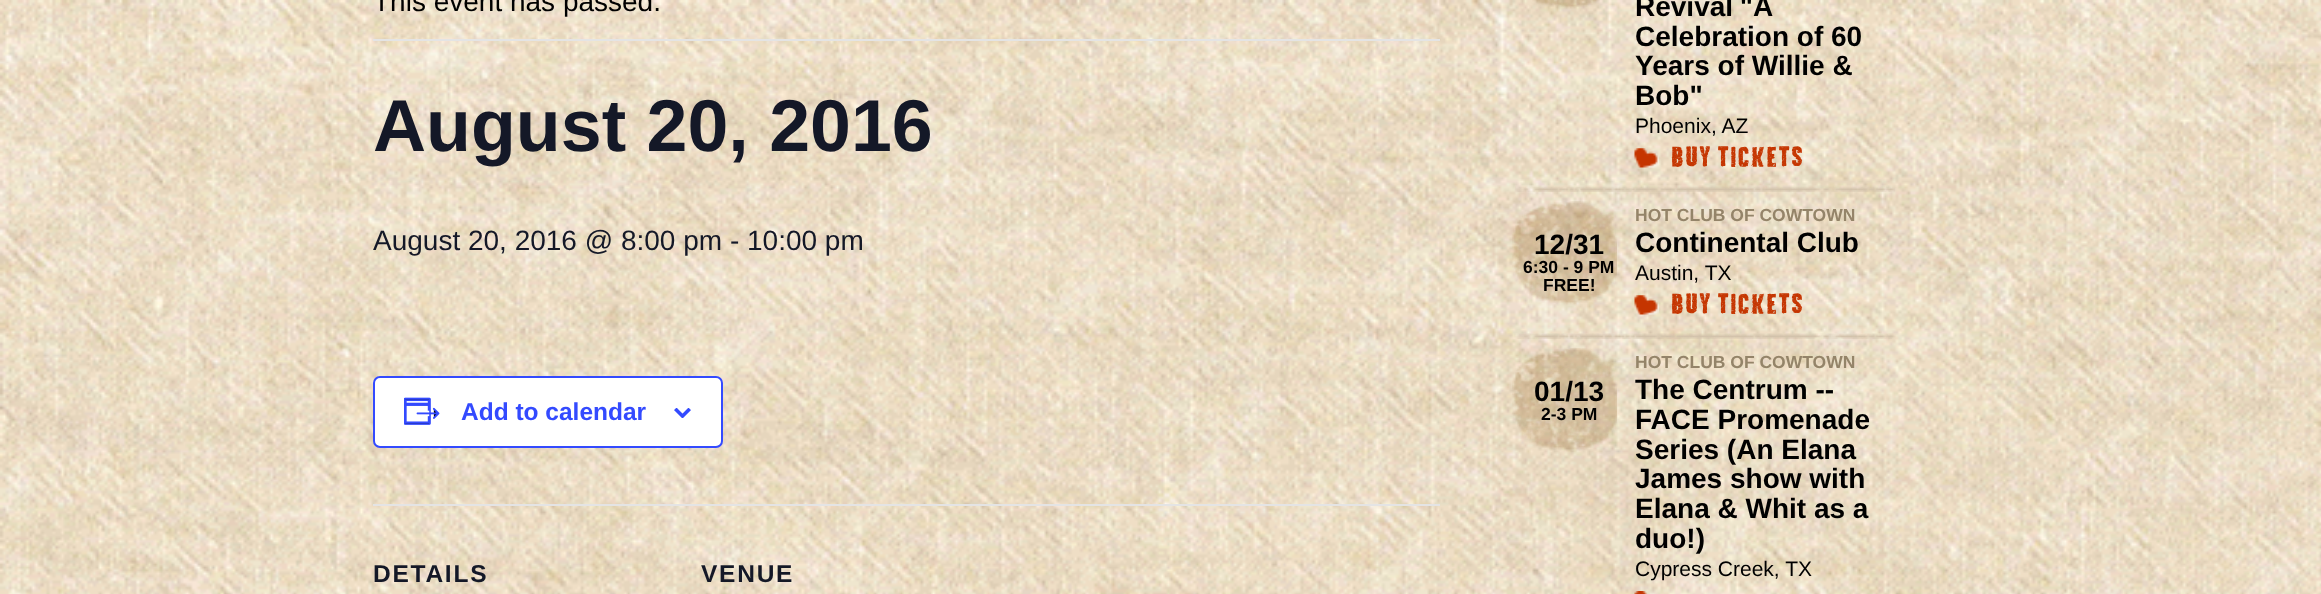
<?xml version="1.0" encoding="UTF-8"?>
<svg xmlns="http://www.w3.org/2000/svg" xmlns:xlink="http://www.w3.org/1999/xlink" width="2321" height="594">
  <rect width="100%" height="100%" fill="#ffffff" />
  <image x="0" y="0" width="2321" height="594" xlink:href="image1.png" />
  <rect x="373" y="39" width="1067" height="2" fill="#e4e4e4" />
  <rect x="374" y="377" width="348" height="70" rx="6" fill="#ffffff" stroke="#334aff" stroke-width="2" />
  <image x="404" y="397" width="36" height="28" xlink:href="image2.png" />
  <image x="674" y="408" width="17" height="10" xlink:href="image3.png" />
  <rect x="373" y="504" width="1067" height="2" fill="#e4e4e4" />
  <image x="1515" y="186" width="380" height="6" xlink:href="image4.png" />
  <image x="1532" y="0" width="68" height="9" xlink:href="image5.png" />
  <image x="1634" y="148" width="25" height="20" xlink:href="image6.png" />
  <image x="1514" y="333" width="382" height="6" xlink:href="image7.png" />
  <image x="1512" y="201" width="105" height="104" xlink:href="image8.png" />
  <image x="1634" y="295" width="25" height="20" xlink:href="image9.png" />
  <image x="1512" y="348" width="105" height="104" xlink:href="image10.png" />
  <image x="1634" y="591" width="13" height="3" xlink:href="image11.png" />
  <text x="373" y="11" style="font-family: Liberation Sans; font-size: 28px; fill: #000000">This event has passed.</text>
  <text x="373" y="151" style="font-family: Liberation Sans; font-size: 73.5px; font-weight: bold; fill: #141827">August 20, 2016</text>
  <text x="373" y="250" style="font-family: Liberation Sans; font-size: 28px; fill: #141827">August 20, 2016 @ 8:00 pm - 10:00 pm</text>
  <text x="461" y="420" style="font-family: Liberation Sans; font-size: 24.5px; font-weight: bold; fill: #334aff">Add to calendar</text>
  <text x="373" y="582" style="font-family: Liberation Sans; font-size: 24.5px; font-weight: bold; letter-spacing: 1.75px; fill: #141827">DETAILS</text>
  <text x="701" y="582" style="font-family: Liberation Sans; font-size: 24.5px; font-weight: bold; letter-spacing: 1.75px; fill: #141827">VENUE</text>
  <text x="1635" y="16" word-spacing="-1" style="font-family: Liberation Sans; font-size: 28px; font-weight: bold; fill: #000000">Revival "A</text>
  <text x="1635" y="46" style="font-family: Liberation Sans; font-size: 28px; font-weight: bold; fill: #000000">Celebration of 60</text>
  <text x="1635" y="75" style="font-family: Liberation Sans; font-size: 28px; font-weight: bold; fill: #000000">Years of Willie &amp;</text>
  <text x="1635" y="105" style="font-family: Liberation Sans; font-size: 28px; font-weight: bold; fill: #000000">Bob"</text>
  <text x="1635" y="133" style="font-family: Liberation Sans; font-size: 21px; fill: #000000">Phoenix, AZ</text>
  <text x="1670" y="166" style="font-family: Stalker; font-size: 26.25px; fill: #c53500">Buy Tickets</text>
  <text x="1534" y="254" style="font-family: Liberation Sans; font-size: 28px; font-weight: bold; fill: #000000">12/31</text>
  <text x="1523" y="273" style="font-family: Liberation Sans; font-size: 17.5px; font-weight: bold; fill: #000000">6:30 - 9 PM</text>
  <text x="1543" y="291" style="font-family: Liberation Sans; font-size: 17.5px; font-weight: bold; fill: #000000">FREE!</text>
  <text x="1635" y="221" style="font-family: Liberation Sans; font-size: 17.5px; font-weight: bold; fill: #948469">HOT CLUB OF COWTOWN</text>
  <text x="1635" y="252" style="font-family: Liberation Sans; font-size: 28px; font-weight: bold; fill: #000000">Continental Club</text>
  <text x="1635" y="280" style="font-family: Liberation Sans; font-size: 21px; fill: #000000">Austin, TX</text>
  <text x="1670" y="313" style="font-family: Stalker; font-size: 26.25px; fill: #c53500">Buy Tickets</text>
  <text x="1534" y="401" style="font-family: Liberation Sans; font-size: 28px; font-weight: bold; fill: #000000">01/13</text>
  <text x="1541" y="420" style="font-family: Liberation Sans; font-size: 17.5px; font-weight: bold; fill: #000000">2-3 PM</text>
  <text x="1635" y="368" style="font-family: Liberation Sans; font-size: 17.5px; font-weight: bold; fill: #948469">HOT CLUB OF COWTOWN</text>
  <text x="1635" y="399" style="font-family: Liberation Sans; font-size: 28px; font-weight: bold; fill: #000000">The Centrum --</text>
  <text x="1635" y="429" style="font-family: Liberation Sans; font-size: 28px; font-weight: bold; fill: #000000">FACE Promenade</text>
  <text x="1635" y="459" style="font-family: Liberation Sans; font-size: 28px; font-weight: bold; fill: #000000">Series (An Elana</text>
  <text x="1635" y="488" style="font-family: Liberation Sans; font-size: 28px; font-weight: bold; fill: #000000">James show with</text>
  <text x="1635" y="518" style="font-family: Liberation Sans; font-size: 28px; font-weight: bold; fill: #000000">Elana &amp; Whit as a</text>
  <text x="1635" y="548" style="font-family: Liberation Sans; font-size: 28px; font-weight: bold; fill: #000000">duo!)</text>
  <text x="1635" y="576" style="font-family: Liberation Sans; font-size: 21px; fill: #000000">Cypress Creek, TX</text>
</svg>
